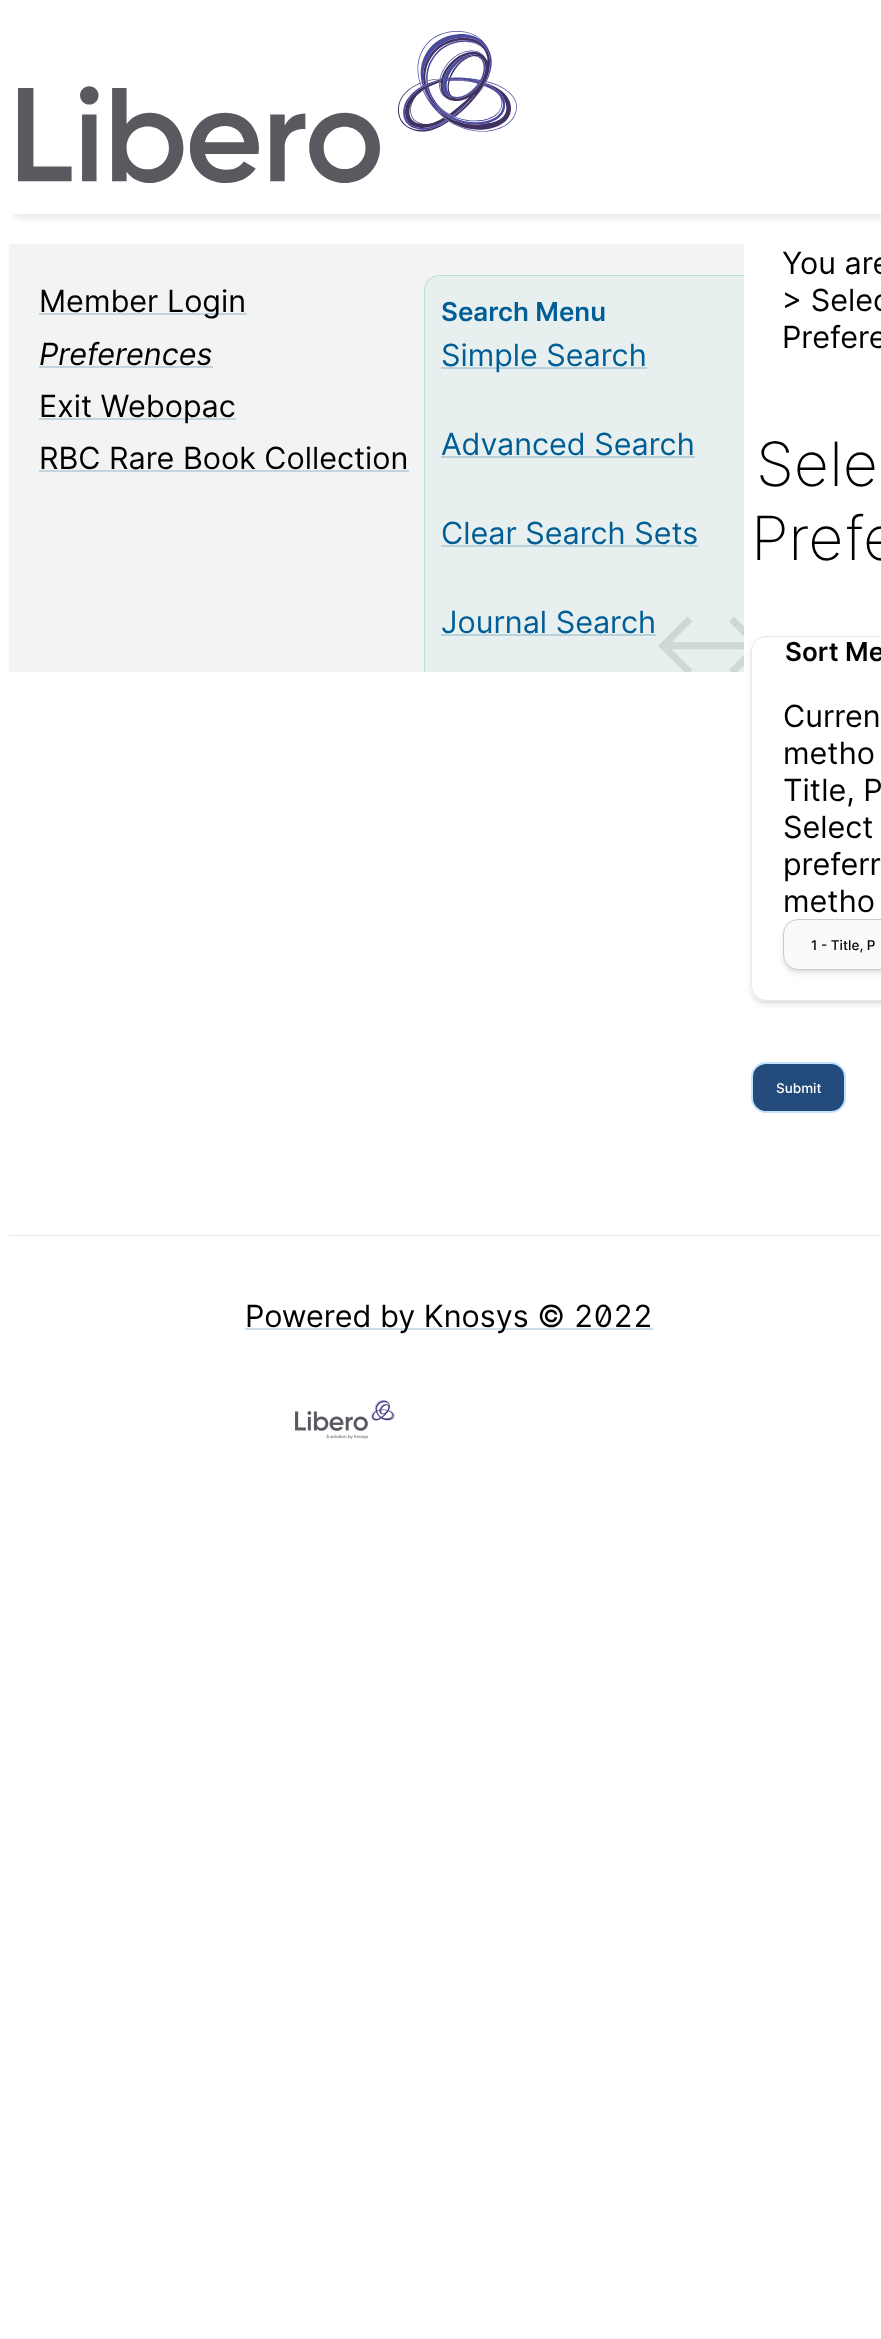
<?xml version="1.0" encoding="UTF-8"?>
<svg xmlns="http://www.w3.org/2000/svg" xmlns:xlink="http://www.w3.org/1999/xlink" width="881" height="2339">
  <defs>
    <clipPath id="clip1"><rect x="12" y="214" width="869" height="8" /></clipPath>
    <clipPath id="clip2"><path d="M 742 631 h 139 v 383 h -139 z m 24 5 h 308 c 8.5 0 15 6.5 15 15 v 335 c 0 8.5 -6.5 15 -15 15 h -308 c -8.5 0 -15 -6.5 -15 -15 v -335 c 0 -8.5 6.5 -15 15 -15 z" clip-rule="evenodd" /></clipPath>
    <clipPath id="clip3"><path d="M 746 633 h 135 v 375 h -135 z m 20 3 h 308 c 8.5 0 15 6.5 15 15 v 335 c 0 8.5 -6.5 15 -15 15 h -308 c -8.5 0 -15 -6.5 -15 -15 v -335 c 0 -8.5 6.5 -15 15 -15 z" clip-rule="evenodd" /></clipPath>
    <clipPath id="clip4"><rect x="9" y="244" width="735" height="428" /></clipPath>
  </defs>
  <rect width="100%" height="100%" fill="#ffffff" />
  <g clip-path="url(#clip1)">
    <rect x="15" y="16" width="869" height="202" fill="#000000" fill-opacity="0.1" filter="blur(5px)" />
  </g>
  <image x="18" y="31" width="499" height="152" xlink:href="image1.png" />
  <g clip-path="url(#clip2)">
    <rect x="752" y="641" width="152" height="363" rx="14" fill="#000000" fill-opacity="0.1" filter="blur(3px)" />
  </g>
  <rect x="9" y="244" width="735" height="428" fill="#f3f3f3" />
  <rect x="39" y="313" width="208" height="2" fill="#c3d4de" />
  <path d="M 439 275 h 305 v 397 h -320 v -382 c 0 -8.5 6.5 -15 15 -15 z" fill="#e7f0ee" />
  <rect x="39" y="366" width="174" height="2" fill="#c3d4de" />
  <rect x="39" y="418" width="197" height="2" fill="#c3d4de" />
  <rect x="39" y="470" width="370" height="2" fill="#c3d4de" />
  <g clip-path="url(#clip3)">
    <rect x="753" y="640" width="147" height="361" rx="13" fill="#000000" fill-opacity="0.1" filter="blur(2px)" />
  </g>
  <rect x="751.5" y="636.5" width="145" height="364" rx="14.5" fill="none" stroke="#e8e8e8" />
  <rect x="785" y="923" width="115" height="47" rx="13" fill="#000000" fill-opacity="0.1" filter="blur(2px)" />
  <rect x="784" y="924" width="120" height="49" rx="14" fill="#000000" fill-opacity="0.1" filter="blur(3px)" />
  <rect x="783.5" y="919.5" width="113" height="50" rx="14.5" fill="#f9fafb" stroke="#cccccc" />
  <rect x="752" y="1063" width="93" height="49" rx="14" fill="#224a7a" stroke="#c0e1ff" stroke-width="2" />
  <rect x="9" y="1235" width="872" height="1" fill="#e8e8e8" />
  <image x="295" y="1400" width="100" height="39" xlink:href="image2.png" />
  <rect x="245" y="1328" width="408" height="2" fill="#ccdde7" />
  <text x="39" y="312" style="font-family: Inter; font-size: 30.5px; fill: #000000">Member Login</text>
  <text x="39" y="365" style="font-family: Inter; font-size: 30.5px; font-style: italic; fill: #000000">Preferences</text>
  <text x="39" y="417" style="font-family: Inter; font-size: 30.5px; fill: #000000">Exit Webopac</text>
  <text x="39" y="469" style="font-family: Inter; font-size: 30.5px; fill: #000000">RBC Rare Book Collection</text>
  <text x="782" y="274" style="font-family: Inter; font-size: 30.5px; fill: #000000">You are</text>
  <text x="782" y="311" style="font-family: Inter; font-size: 30.5px; fill: #000000">&gt; Selec</text>
  <text x="782" y="348" style="font-family: Inter; font-size: 30.5px; fill: #000000">Prefere</text>
  <text x="756" y="486" style="font-family: Inter; font-size: 61px; font-weight: 200; fill: #000000">Sele</text>
  <text x="751" y="560" style="font-family: Inter; font-size: 61px; font-weight: 200; fill: #000000">Prefe</text>
  <text x="785" y="661" style="font-family: Inter; font-size: 26px; font-weight: 600; fill: #000000">Sort Me</text>
  <text x="783" y="727" style="font-family: Inter; font-size: 30.5px; fill: #000000">Curren</text>
  <text x="783" y="764" style="font-family: Inter; font-size: 30.5px; fill: #000000">metho</text>
  <text x="783" y="801" style="font-family: Inter; font-size: 30.5px; fill: #000000">Title, P</text>
  <g clip-path="url(#clip4)">
    <rect x="424.5" y="275.5" width="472" height="515" rx="14.5" fill="none" stroke="#00a57d" stroke-opacity="0.2" />
    <text x="649" y="675" style="font-family: Inter; font-size: 92px; fill: #d0d8d6">↔</text>
  </g>
  <text x="441" y="633" style="font-family: Inter; font-size: 30.5px; fill: #005d95">Journal Search</text>
  <rect x="441" y="634" width="215" height="2" fill="#bad2db" />
  <text x="441" y="544" style="font-family: Inter; font-size: 30.5px; fill: #005d95">Clear Search Sets</text>
  <rect x="441" y="545" width="257" height="2" fill="#bad2db" />
  <text x="441" y="455" style="font-family: Inter; font-size: 30.5px; fill: #005d95">Advanced Search</text>
  <rect x="441" y="456" width="254" height="2" fill="#bad2db" />
  <rect x="441" y="367" width="206" height="2" fill="#bad2db" />
  <text x="441" y="366" style="font-family: Inter; font-size: 30.5px; fill: #005d95">Simple Search</text>
  <text x="441" y="321" style="font-family: Inter; font-size: 26px; font-weight: 600; fill: #005d95">Search Menu</text>
  <text x="783" y="838" style="font-family: Inter; font-size: 30.5px; fill: #000000">Select</text>
  <text x="783" y="875" style="font-family: Inter; font-size: 30.5px; fill: #000000">preferr</text>
  <text x="783" y="912" style="font-family: Inter; font-size: 30.5px; fill: #000000">metho</text>
  <text x="811" y="950" style="font-family: Inter; font-size: 13.5px; font-weight: 500; fill: #000000">1 - Title, P</text>
  <text x="776" y="1093" style="font-family: Inter; font-size: 13.5px; font-weight: 500; fill: #ffffff">Submit</text>
  <text x="245" y="1327" style="font-family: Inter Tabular; font-size: 30.5px; fill: #000000">Powered by Knosys © 2022</text>
</svg>
